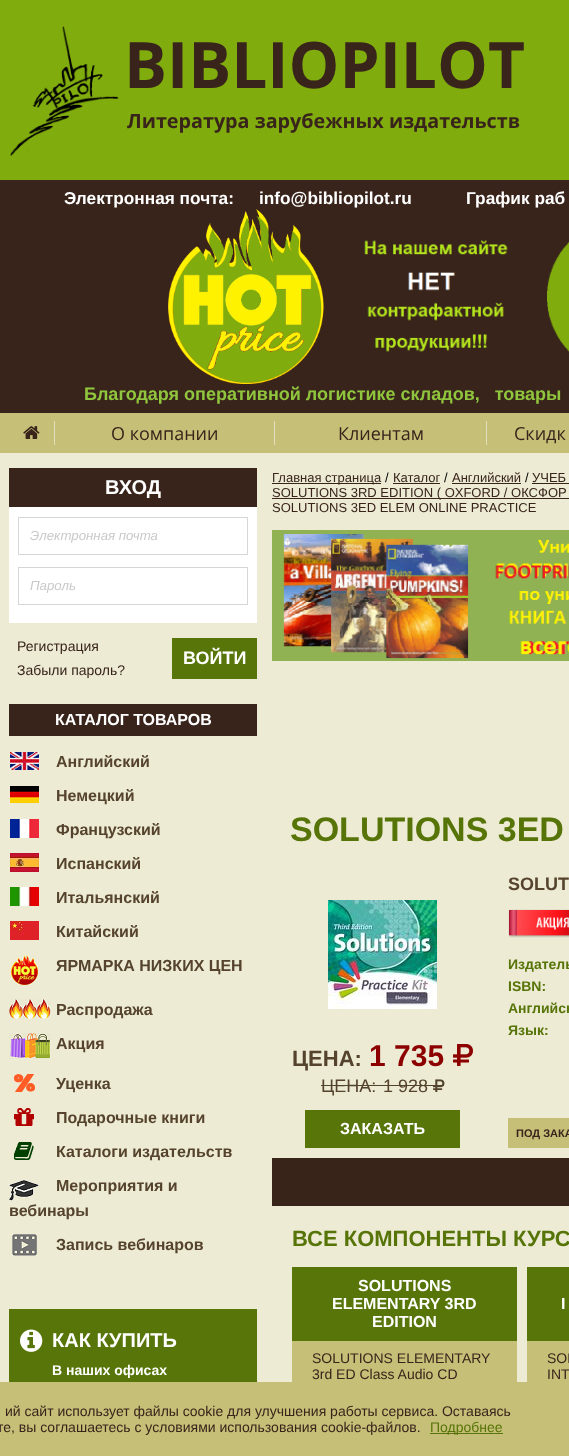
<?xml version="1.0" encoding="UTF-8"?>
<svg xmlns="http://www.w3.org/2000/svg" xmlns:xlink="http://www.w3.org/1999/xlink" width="569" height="1456">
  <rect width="100%" height="100%" fill="#80ac0d" />
  <image x="10" y="26" width="109" height="130" xlink:href="image1.png" />
  <rect y="180" width="569" height="233" fill="#38241b" />
  <image x="168" y="209" width="156" height="175" xlink:href="image2.png" />
  <image x="364" y="240" width="144" height="112" xlink:href="image3.png" />
  <image x="547" y="241" width="22" height="111" xlink:href="image4.png" />
  <rect y="413" width="569" height="40" fill="#c6bf77" />
  <image x="23" y="426" width="17" height="13" xlink:href="image5.png" />
  <rect x="54" y="421" width="1" height="24" fill="#e2debc" />
  <rect x="274" y="421" width="1" height="24" fill="#e2debc" />
  <rect x="486" y="421" width="1" height="24" fill="#e2debc" />
  <rect y="453" width="569" height="929" fill="#edebd4" />
  <rect x="9" y="468" width="248" height="39" fill="#38241b" />
  <rect x="9" y="507" width="248" height="116" fill="#ffffff" />
  <rect x="18.5" y="517.5" width="229" height="37" fill="none" stroke="#d6d6d6" />
  <rect x="18.5" y="567.5" width="229" height="37" fill="none" stroke="#d6d6d6" />
  <rect x="172" y="638" width="85" height="41" fill="#577509" />
  <rect x="9" y="704" width="248" height="32" fill="#38241b" />
  <image x="10" y="752" width="29" height="18" xlink:href="image6.png" />
  <image x="10" y="786" width="29" height="17" xlink:href="image7.png" />
  <image x="10" y="819" width="29" height="19" xlink:href="image8.png" />
  <image x="10" y="853" width="29" height="19" xlink:href="image9.png" />
  <image x="10" y="887" width="29" height="19" xlink:href="image10.png" />
  <image x="10" y="921" width="29" height="19" xlink:href="image11.png" />
  <image x="11" y="955" width="27" height="30" xlink:href="image12.png" />
  <image x="9" y="999" width="42" height="20" xlink:href="image13.png" />
  <image x="9" y="1033" width="42" height="26" xlink:href="image14.png" />
  <image x="14" y="1074" width="21" height="18" xlink:href="image15.png" />
  <image x="14" y="1108" width="20" height="18" xlink:href="image16.png" />
  <image x="14" y="1142" width="20" height="18" xlink:href="image17.png" />
  <image x="9" y="1180" width="30" height="21" xlink:href="image18.png" />
  <image x="12" y="1234" width="25" height="22" xlink:href="image19.png" />
  <rect x="9" y="1309" width="248" height="73" fill="#577509" />
  <image x="20" y="1329" width="23" height="23" xlink:href="image20.png" />
  <rect x="272" y="483" width="109" height="1" fill="#382419" />
  <rect x="393" y="483" width="47" height="1" fill="#382419" />
  <rect x="452" y="483" width="69" height="1" fill="#382419" />
  <rect x="532" y="483" width="37" height="1" fill="#382419" />
  <rect x="272" y="498" width="297" height="1" fill="#382419" />
  <image x="272" y="530" width="297" height="131" xlink:href="image21.png" />
  <image x="508" y="909" width="61" height="29" xlink:href="image22.png" />
  <image x="328" y="900" width="109" height="109" xlink:href="image23.png" />
  <image x="453" y="1044" width="20" height="22" xlink:href="image24.png" />
  <rect x="305" y="1110" width="155" height="38" fill="#577509" />
  <rect x="508" y="1118" width="61" height="30" fill="#c6bf77" />
  <rect x="272" y="1158" width="297" height="48" fill="#382419" />
  <rect x="292" y="1341" width="225" height="41" fill="#c6bf77" />
  <rect x="292" y="1267" width="225" height="74" fill="#577509" />
  <rect x="527" y="1341" width="42" height="41" fill="#c6bf77" />
  <rect x="527" y="1267" width="42" height="74" fill="#577509" />
  <rect y="1382" width="569" height="74" fill="#c6bf77" />
  <rect x="430" y="1433" width="73" height="1" fill="#577509" />
  <text x="124" y="88" style="font-family: Open Sans; font-size: 64px; font-weight: bold; fill: #38241b">BIBLIOPILOT</text>
  <text x="127" y="128" style="font-family: Open Sans; font-size: 19.75px; font-weight: bold; fill: #38241b">Литература зарубежных издательств</text>
  <text x="64" y="204" style="font-family: Liberation Sans; font-size: 17.25px; font-weight: bold; fill: #ffffff">Электронная почта:</text>
  <text x="259" y="204" style="font-family: Liberation Sans; font-size: 17.25px; font-weight: bold; fill: #ffffff">info@bibliopilot.ru</text>
  <text x="466" y="204" style="font-family: Liberation Sans; font-size: 17.25px; font-weight: bold; fill: #ffffff">График раб</text>
  <text x="84" y="400" style="font-family: Liberation Sans; font-size: 18px; font-weight: bold; fill: #8fc63d" xml:space="preserve">Благодаря оперативной логистике складов,   товары</text>
  <text x="111" y="440" style="font-family: Open Sans; font-size: 18px; fill: #38241b">О компании</text>
  <text x="338" y="440" style="font-family: Open Sans; font-size: 18px; fill: #38241b">Клиентам</text>
  <text x="514" y="440" style="font-family: Open Sans; font-size: 18px; fill: #38241b">Скидк</text>
  <text x="105" y="494" style="font-family: Liberation Sans; font-size: 20px; font-weight: bold; fill: #ffffff">ВХОД</text>
  <text x="30" y="540" style="font-family: Liberation Sans; font-size: 13.25px; font-style: italic; fill: #c9c9c9">Электронная почта</text>
  <text x="30" y="590" style="font-family: Liberation Sans; font-size: 13.25px; font-style: italic; fill: #c9c9c9">Пароль</text>
  <text x="17" y="651" style="font-family: Liberation Sans; font-size: 14px; fill: #38241b">Регистрация</text>
  <text x="17" y="675" style="font-family: Liberation Sans; font-size: 14px; fill: #38241b">Забыли пароль?</text>
  <text x="183" y="664" style="font-family: Liberation Sans; font-size: 18px; font-weight: bold; fill: #ffffff">ВОЙТИ</text>
  <text x="55" y="725" style="font-family: Liberation Sans; font-size: 16px; font-weight: bold; fill: #ffffff">КАТАЛОГ ТОВАРОВ</text>
  <text x="56" y="767" style="font-family: Liberation Sans; font-size: 16px; font-weight: bold; fill: #55432d">Английский</text>
  <text x="56" y="801" style="font-family: Liberation Sans; font-size: 16px; font-weight: bold; fill: #55432d">Немецкий</text>
  <text x="56" y="835" style="font-family: Liberation Sans; font-size: 16px; font-weight: bold; fill: #55432d">Французский</text>
  <text x="56" y="869" style="font-family: Liberation Sans; font-size: 16px; font-weight: bold; fill: #55432d">Испанский</text>
  <text x="56" y="903" style="font-family: Liberation Sans; font-size: 16px; font-weight: bold; fill: #55432d">Итальянский</text>
  <text x="56" y="937" style="font-family: Liberation Sans; font-size: 16px; font-weight: bold; fill: #55432d">Китайский</text>
  <text x="56" y="971" style="font-family: Liberation Sans; font-size: 16px; font-weight: bold; fill: #55432d">ЯРМАРКА НИЗКИХ ЦЕН</text>
  <text x="56" y="1015" style="font-family: Liberation Sans; font-size: 16px; font-weight: bold; fill: #55432d">Распродажа</text>
  <text x="56" y="1049" style="font-family: Liberation Sans; font-size: 16px; font-weight: bold; fill: #55432d">Акция</text>
  <text x="56" y="1089" style="font-family: Liberation Sans; font-size: 16px; font-weight: bold; fill: #55432d">Уценка</text>
  <text x="56" y="1123" style="font-family: Liberation Sans; font-size: 16px; font-weight: bold; fill: #55432d">Подарочные книги</text>
  <text x="56" y="1157" style="font-family: Liberation Sans; font-size: 16px; font-weight: bold; fill: #55432d">Каталоги издательств</text>
  <text x="56" y="1191" style="font-family: Liberation Sans; font-size: 16px; font-weight: bold; fill: #55432d">Мероприятия и</text>
  <text x="9" y="1216" style="font-family: Liberation Sans; font-size: 16px; font-weight: bold; fill: #55432d">вебинары</text>
  <text x="56" y="1250" style="font-family: Liberation Sans; font-size: 16px; font-weight: bold; fill: #55432d">Запись вебинаров</text>
  <text x="52" y="1347" style="font-family: Liberation Sans; font-size: 20px; font-weight: bold; fill: #ffffff">КАК КУПИТЬ</text>
  <text x="52" y="1375" style="font-family: Liberation Sans; font-size: 14px; font-weight: bold; fill: #ffffff">В наших офисах</text>
  <text x="272" y="482" style="font-family: Liberation Sans; font-size: 13px; fill: #38241b">Главная страница</text>
  <text x="385" y="482" style="font-family: Liberation Sans; font-size: 13px; fill: #000000">/</text>
  <text x="393" y="482" style="font-family: Liberation Sans; font-size: 13px; fill: #38241b">Каталог</text>
  <text x="444" y="482" style="font-family: Liberation Sans; font-size: 13px; fill: #000000">/</text>
  <text x="452" y="482" style="font-family: Liberation Sans; font-size: 13px; fill: #38241b">Английский</text>
  <text x="525" y="482" style="font-family: Liberation Sans; font-size: 13px; fill: #000000">/</text>
  <text x="532" y="482" style="font-family: Liberation Sans; font-size: 13px; fill: #38241b">УЧЕБ</text>
  <text x="272" y="497" style="font-family: Liberation Sans; font-size: 13px; fill: #38241b">SOLUTIONS 3RD EDITION ( OXFORD / ОКСФОР</text>
  <text x="272" y="512" style="font-family: Liberation Sans; font-size: 13px; fill: #38241b">SOLUTIONS 3ED ELEM ONLINE PRACTICE</text>
  <text x="290" y="841" style="font-family: Liberation Sans; font-size: 34px; font-weight: bold; fill: #577408">SOLUTIONS 3ED</text>
  <text x="508" y="890" style="font-family: Liberation Sans; font-size: 18px; font-weight: bold; fill: #55432d">SOLUT</text>
  <text x="508" y="969" style="font-family: Liberation Sans; font-size: 14px; font-weight: bold; fill: #577408">Издатель</text>
  <text x="508" y="991" style="font-family: Liberation Sans; font-size: 14px; font-weight: bold; fill: #577408">ISBN:</text>
  <text x="508" y="1013" style="font-family: Liberation Sans; font-size: 14px; font-weight: bold; fill: #577408">Английск</text>
  <text x="508" y="1035" style="font-family: Liberation Sans; font-size: 14px; font-weight: bold; fill: #577408">Язык:</text>
  <text x="292" y="1066" style="font-family: Liberation Sans; font-size: 22px; font-weight: bold; fill: #55432d">ЦЕНА:</text>
  <text x="369" y="1066" style="font-family: Liberation Sans; font-size: 30px; font-weight: bold; fill: #8c0000">1 735</text>
  <text x="321" y="1092" style="font-family: Liberation Sans; font-size: 18px; fill: #55432d">ЦЕНА:</text>
  <text x="383" y="1092" style="font-family: Liberation Sans; font-size: 18px; fill: #55432d">1 928</text>
  <rect x="321" y="1085" width="123" height="1" fill="#52432c" />
  <image x="433" y="1079" width="12" height="13" xlink:href="image25.png" />
  <text x="340" y="1134" style="font-family: Liberation Sans; font-size: 16px; font-weight: bold; fill: #ffffff">ЗАКАЗАТЬ</text>
  <text x="516" y="1137" style="font-family: Liberation Sans; font-size: 11px; font-weight: bold; fill: #38241b">ПОД ЗАКА</text>
  <text x="292" y="1246" style="font-family: Liberation Sans; font-size: 22px; font-weight: bold; fill: #577408">ВСЕ КОМПОНЕНТЫ КУРС</text>
  <text x="358" y="1291" style="font-family: Liberation Sans; font-size: 16px; font-weight: bold; fill: #ffffff">SOLUTIONS</text>
  <text x="332" y="1309" style="font-family: Liberation Sans; font-size: 16px; font-weight: bold; fill: #ffffff">ELEMENTARY 3RD</text>
  <text x="372" y="1327" style="font-family: Liberation Sans; font-size: 16px; font-weight: bold; fill: #ffffff">EDITION</text>
  <text x="312" y="1363" style="font-family: Liberation Sans; font-size: 14px; fill: #38241b">SOLUTIONS ELEMENTARY</text>
  <text x="312" y="1379" style="font-family: Liberation Sans; font-size: 14px; fill: #38241b">3rd ED Class Audio CD</text>
  <text x="561" y="1309" style="font-family: Liberation Sans; font-size: 16px; font-weight: bold; fill: #ffffff">I</text>
  <text x="547" y="1363" style="font-family: Liberation Sans; font-size: 14px; fill: #38241b">SOL</text>
  <text x="547" y="1379" style="font-family: Liberation Sans; font-size: 14px; fill: #38241b">INT</text>
  <text x="5" y="1416" style="font-family: Liberation Sans; font-size: 14px; fill: #38241b">ий сайт использует файлы cookie для улучшения работы сервиса. Оставаясь</text>
  <text x="-3" y="1432" style="font-family: Liberation Sans; font-size: 14px; fill: #38241b">те, вы соглашаетесь с условиями использования cookie-файлов.</text>
  <text x="430" y="1432" style="font-family: Liberation Sans; font-size: 14px; fill: #577408">Подробнее</text>
</svg>
